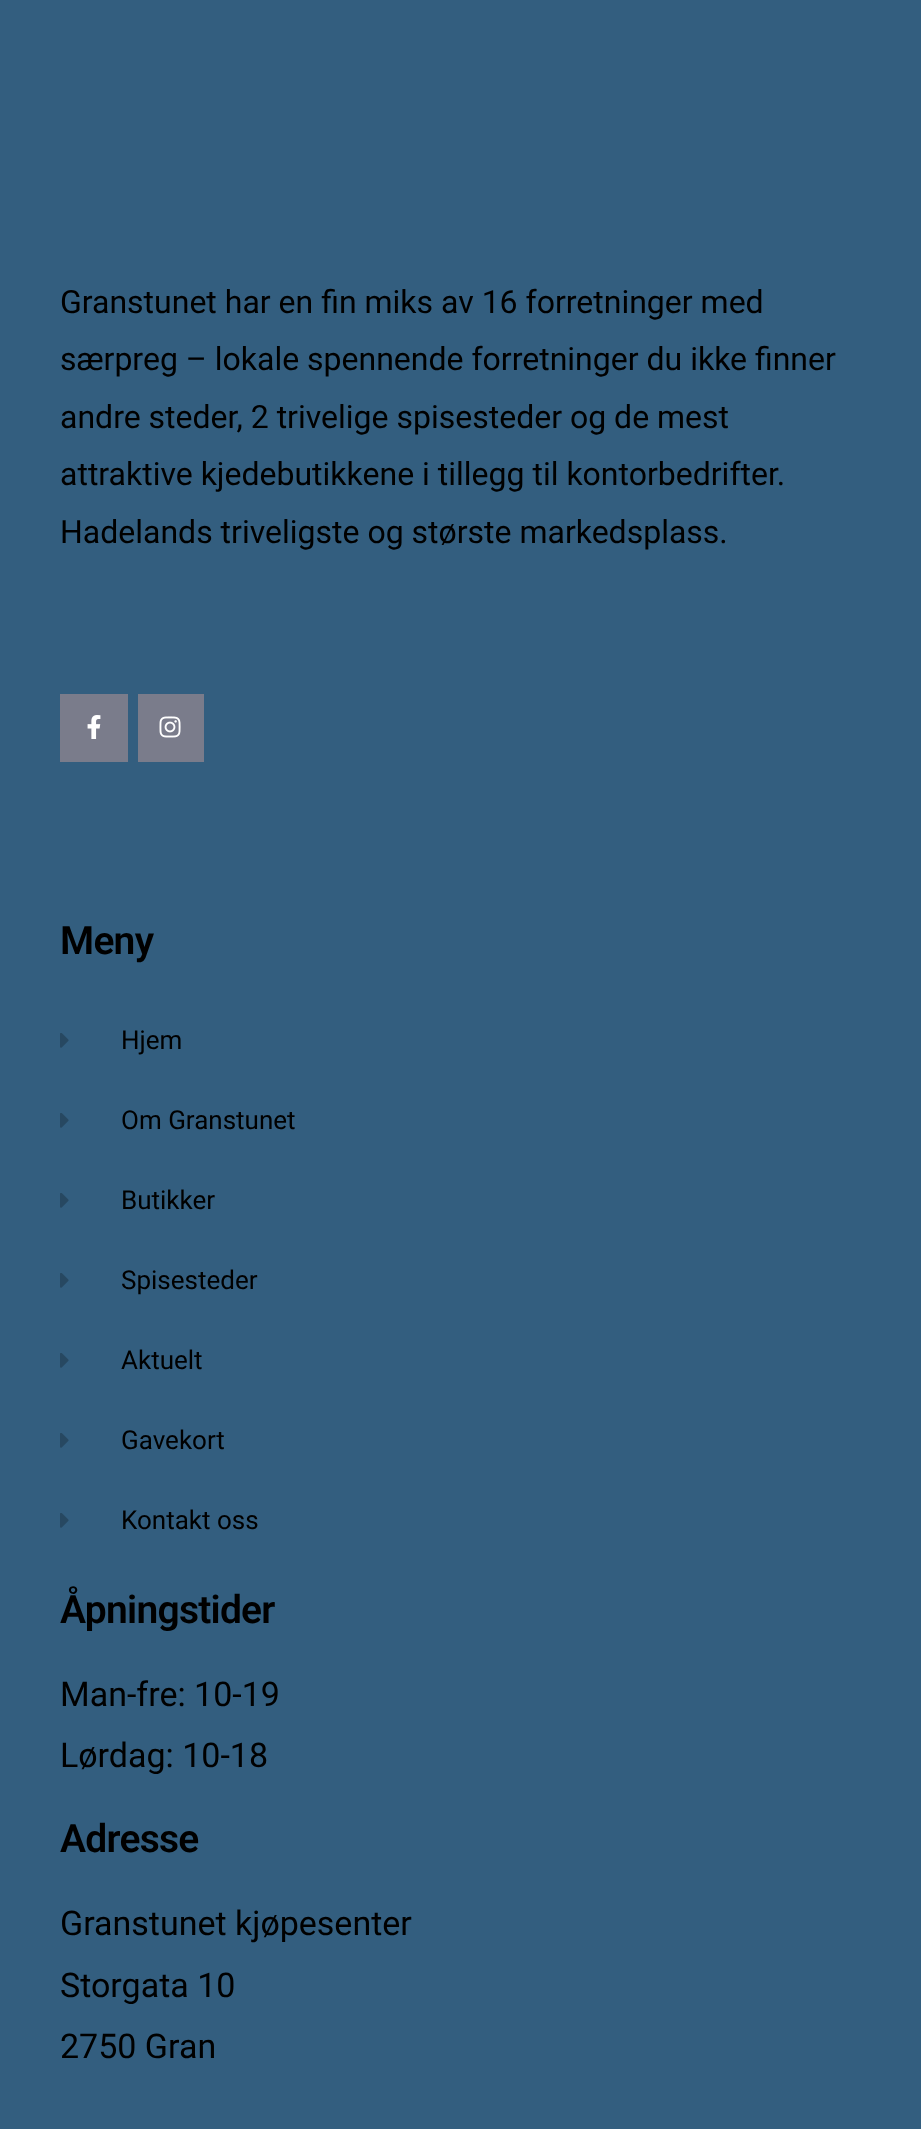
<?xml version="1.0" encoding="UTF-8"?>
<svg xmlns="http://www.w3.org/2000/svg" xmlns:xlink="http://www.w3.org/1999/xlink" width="921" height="2129">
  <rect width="100%" height="100%" fill="#335e7f" />
  <rect x="60" y="694" width="68" height="68" fill="#7a7c8b" />
  <image x="87" y="715" width="14" height="24" xlink:href="image1.png" />
  <rect x="138" y="694" width="66" height="68" fill="#7a7c8b" />
  <image x="159" y="716" width="22" height="22" xlink:href="image2.png" />
  <image x="60" y="1033" width="9" height="15" xlink:href="image3.png" />
  <image x="60" y="1113" width="9" height="15" xlink:href="image3.png" />
  <image x="60" y="1193" width="9" height="15" xlink:href="image3.png" />
  <image x="60" y="1273" width="9" height="15" xlink:href="image3.png" />
  <image x="60" y="1353" width="9" height="15" xlink:href="image3.png" />
  <image x="60" y="1433" width="9" height="15" xlink:href="image3.png" />
  <image x="60" y="1513" width="9" height="15" xlink:href="image3.png" />
  <text x="60" y="313" style="font-family: Roboto; font-size: 32px; fill: #000000">Granstunet har en fin miks av 16 forretninger med</text>
  <text x="60" y="370" style="font-family: Roboto; font-size: 32px; fill: #000000">særpreg – lokale spennende forretninger du ikke finner</text>
  <text x="60" y="428" style="font-family: Roboto; font-size: 32px; fill: #000000">andre steder, 2 trivelige spisesteder og de mest</text>
  <text x="60" y="485" style="font-family: Roboto; font-size: 32px; fill: #000000">attraktive kjedebutikkene i tillegg til kontorbedrifter.</text>
  <text x="60" y="543" style="font-family: Roboto; font-size: 32px; fill: #000000">Hadelands triveligste og største markedsplass.</text>
  <text x="60" y="954" style="font-family: Roboto; font-size: 39px; font-weight: 600; letter-spacing: -0.75px; fill: #000000">Meny</text>
  <text x="121" y="1049" style="font-family: Roboto; font-size: 26px; fill: #000000">Hjem</text>
  <text x="121" y="1129" style="font-family: Roboto; font-size: 26px; fill: #000000">Om Granstunet</text>
  <text x="121" y="1209" style="font-family: Roboto; font-size: 26px; fill: #000000">Butikker</text>
  <text x="121" y="1289" style="font-family: Roboto; font-size: 26px; fill: #000000">Spisesteder</text>
  <text x="121" y="1369" style="font-family: Roboto; font-size: 26px; fill: #000000">Aktuelt</text>
  <text x="121" y="1449" style="font-family: Roboto; font-size: 26px; fill: #000000">Gavekort</text>
  <text x="121" y="1529" style="font-family: Roboto; font-size: 26px; fill: #000000">Kontakt oss</text>
  <text x="60" y="1623" style="font-family: Roboto; font-size: 39px; font-weight: 600; letter-spacing: -0.75px; fill: #000000">Åpningstider</text>
  <text x="60" y="1706" style="font-family: Roboto; font-size: 34px; fill: #000000">Man-fre: 10-19</text>
  <text x="60" y="1767" style="font-family: Roboto; font-size: 34px; fill: #000000">Lørdag: 10-18</text>
  <text x="60" y="1852" style="font-family: Roboto; font-size: 39px; font-weight: 600; letter-spacing: -0.75px; fill: #000000">Adresse</text>
  <text x="60" y="1935" style="font-family: Roboto; font-size: 34px; fill: #000000">Granstunet kjøpesenter</text>
  <text x="60" y="1997" style="font-family: Roboto; font-size: 34px; fill: #000000">Storgata 10</text>
  <text x="60" y="2058" style="font-family: Roboto; font-size: 34px; fill: #000000">2750 Gran</text>
</svg>
